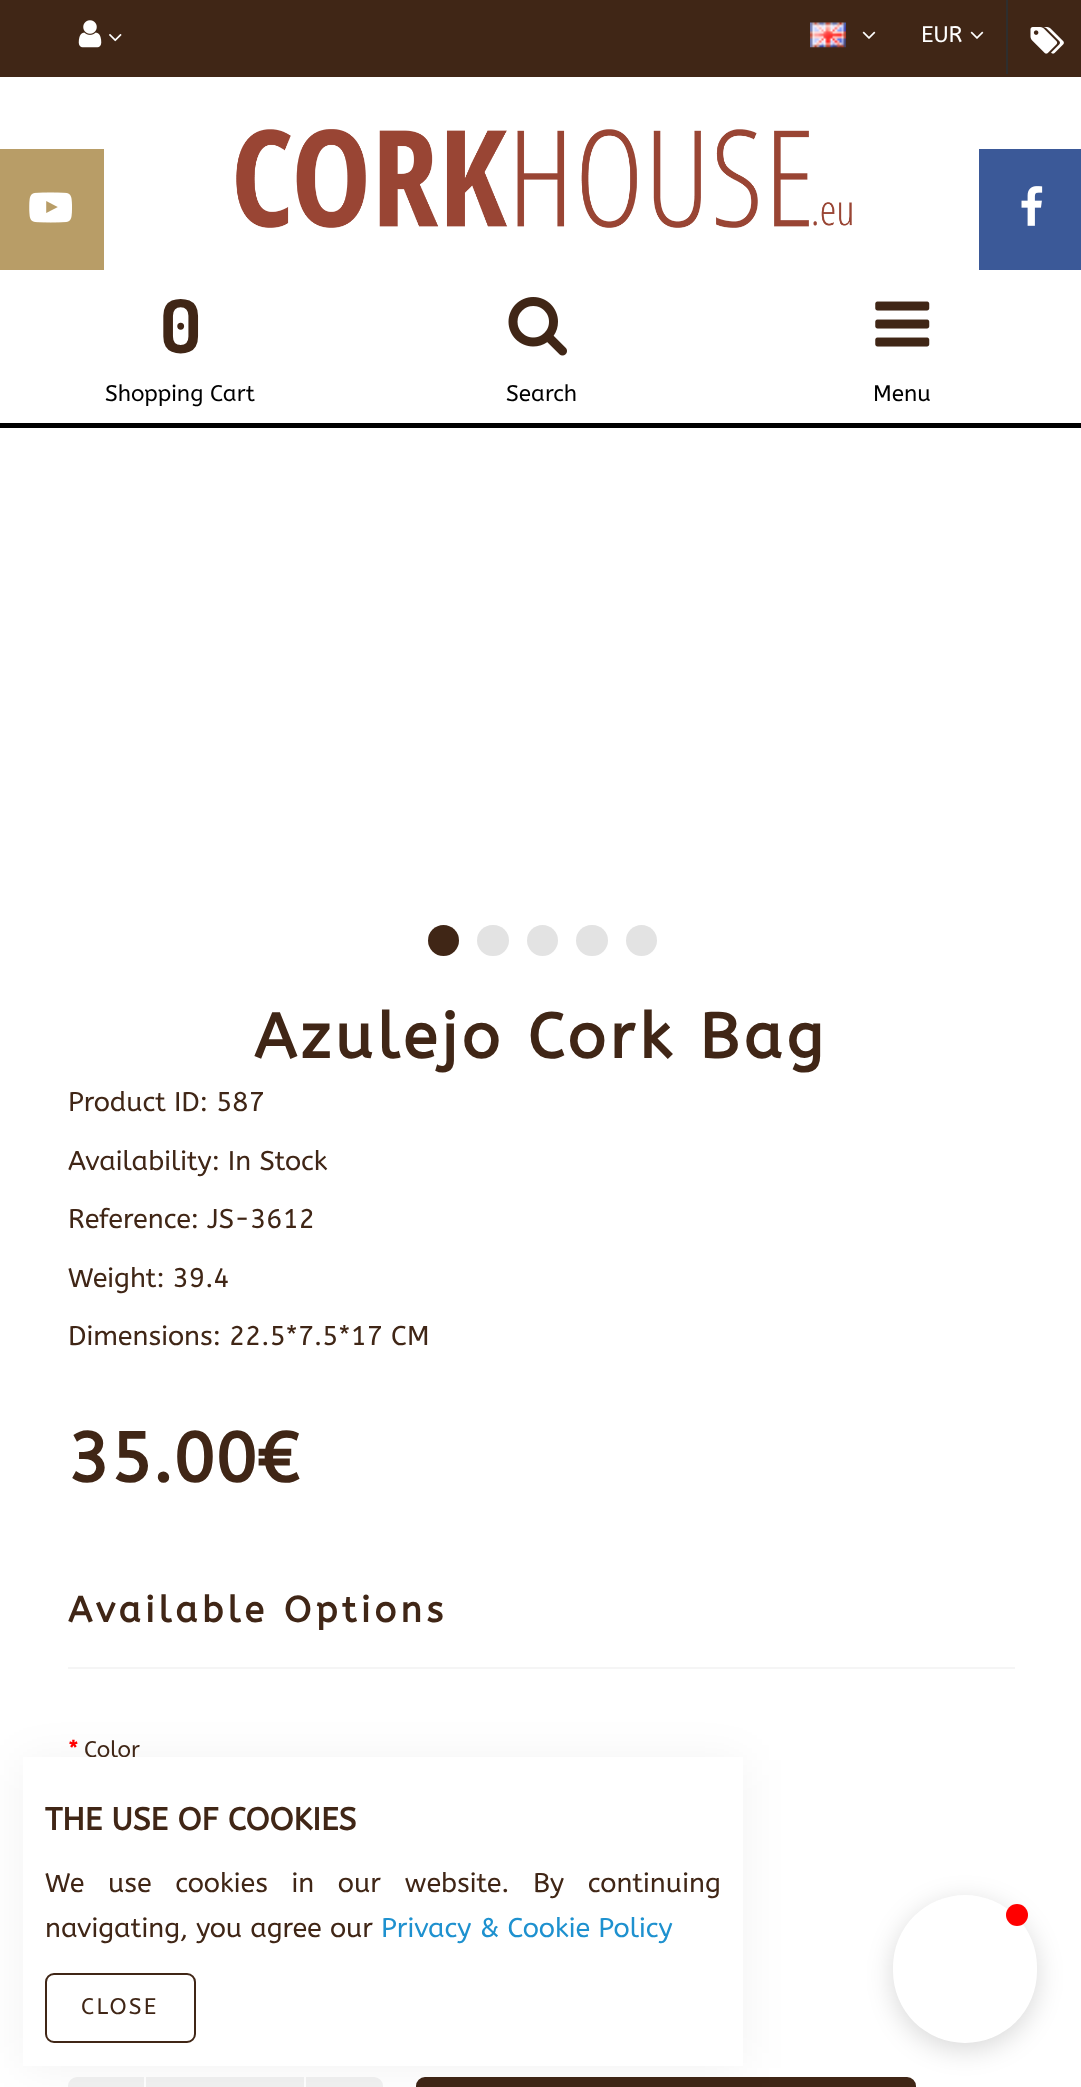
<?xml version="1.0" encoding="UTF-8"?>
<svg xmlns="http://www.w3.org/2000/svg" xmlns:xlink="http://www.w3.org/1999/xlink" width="1081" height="2087">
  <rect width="100%" height="100%" fill="#ffffff" />
  <rect width="1081" height="77" fill="#402616" />
  <image x="78" y="20" width="24" height="28" xlink:href="image1.png" />
  <image x="109" y="34" width="13" height="8" xlink:href="image2.png" />
  <image x="810" y="22" width="36" height="26" xlink:href="image3.png" />
  <image x="862" y="31" width="14" height="8" xlink:href="image4.png" />
  <image x="970" y="31" width="14" height="8" xlink:href="image4.png" />
  <image x="236" y="129" width="616" height="99" xlink:href="image5.png" />
  <image x="508" y="297" width="59" height="59" xlink:href="image6.png" />
  <rect y="423" width="1081" height="5" fill="#000000" />
  <image x="875" y="301" width="55" height="46" xlink:href="image7.png" />
  <circle cx="443.5" cy="940.5" r="15.5" fill="#402616" />
  <rect x="477" y="925" width="32" height="31" rx="15.5" fill="#e3e3e3" />
  <circle cx="542.5" cy="940.5" r="15.5" fill="#e3e3e3" />
  <rect x="576" y="925" width="32" height="31" rx="15.5" fill="#e3e3e3" />
  <circle cx="641.5" cy="940.5" r="15.5" fill="#e3e3e3" />
  <rect x="68" y="1667" width="947" height="2" fill="#f5f5f5" />
  <path d="M 77 2080.5 h 63.5 v 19 h -63.5 c -3 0 -5.5 -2.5 -5.5 -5.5 v -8 c 0 -3 2.5 -5.5 5.5 -5.5 z" fill="#f1f1f1" stroke="#f1f1f1" stroke-width="7" />
  <rect x="146" y="2077" width="158" height="10" fill="#f1f1f1" />
  <path d="M 309.5 2080.5 h 64.5 c 3 0 5.5 2.5 5.5 5.5 v 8 c 0 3 -2.5 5.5 -5.5 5.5 h -64.5 z" fill="#f1f1f1" stroke="#f1f1f1" stroke-width="7" />
  <rect x="419.5" y="2080.5" width="493" height="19" rx="5.5" fill="#402616" stroke="#402616" stroke-width="7" />
  <rect x="23" y="1760" width="720" height="308" fill="#000000" fill-opacity="0.05" filter="blur(22.5px)" />
  <rect x="1006" width="2" height="74" fill="#2e2e2e" />
  <image x="1030" y="27" width="34" height="27" xlink:href="image8.png" />
  <rect y="149" width="104" height="121" fill="#b89d67" />
  <image x="29" y="192" width="43" height="31" xlink:href="image9.png" />
  <rect x="979" y="149" width="102" height="121" fill="#3b5998" />
  <image x="1021" y="186" width="22" height="40" xlink:href="image10.png" />
  <rect x="893" y="1901" width="144" height="149" rx="72" fill="#000000" fill-opacity="0.15" filter="blur(13.5px)" />
  <rect x="893" y="1895" width="144" height="148" rx="72" fill="#ffffff" />
  <circle cx="1017" cy="1915" r="11" fill="#ff0000" />
  <text x="921" y="42" style="font-family: ABeeZee; font-size: 22.5px; fill: #ffffff">EUR</text>
  <text x="160" y="353" style="font-family: Dosis; font-size: 74px; font-weight: bold; fill: #402616">0</text>
  <text x="105" y="401" style="font-family: ABeeZee; font-size: 22.5px; fill: #000000">Shopping Cart</text>
  <text x="506" y="401" style="font-family: ABeeZee; font-size: 22.5px; fill: #000000">Search</text>
  <text x="873" y="401" style="font-family: ABeeZee; font-size: 22.5px; fill: #000000">Menu</text>
  <text x="254" y="1058" style="font-family: ABeeZee; font-size: 63px; font-weight: bold; letter-spacing: 4.5px; fill: #402616">Azulejo Cork Bag</text>
  <text x="68" y="1111" style="font-family: ABeeZee; font-size: 27px; fill: #402616">Product ID: 587</text>
  <text x="68" y="1170" style="font-family: ABeeZee; font-size: 27px; fill: #402616">Availability: In Stock</text>
  <text x="68" y="1228" style="font-family: ABeeZee; font-size: 27px; fill: #402616">Reference: JS-3612</text>
  <text x="68" y="1287" style="font-family: ABeeZee; font-size: 27px; fill: #402616">Weight: 39.4</text>
  <text x="68" y="1345" style="font-family: ABeeZee; font-size: 27px; fill: #402616">Dimensions: 22.5*7.5*17 CM</text>
  <text x="68" y="1482" style="font-family: ABeeZee; font-size: 70px; font-weight: bold; fill: #402616">35.00€</text>
  <text x="68" y="1622" style="font-family: ABeeZee; font-size: 36px; font-weight: bold; letter-spacing: 4.5px; fill: #402616">Available Options</text>
  <text x="68" y="1757" style="font-family: ABeeZee; font-size: 22.5px; font-weight: bold; fill: #ff0000">*</text>
  <text x="84" y="1757" style="font-family: ABeeZee; font-size: 22.5px; fill: #402616">Color</text>
  <rect x="23" y="1757" width="720" height="309" fill="#ffffff" />
  <text x="45" y="1830" style="font-family: ABeeZee; font-size: 31.5px; font-weight: bold; fill: #402616">THE USE OF COOKIES</text>
  <text x="45" y="1892" word-spacing="15.5" style="font-family: ABeeZee; font-size: 27px; fill: #402616">We use cookies in our website. By continuing</text>
  <text x="45" y="1937" style="font-family: ABeeZee; font-size: 27px; fill: #402616">navigating, you agree our</text>
  <text x="381" y="1937" style="font-family: ABeeZee; font-size: 27px; fill: #1e91cf">Privacy &amp; Cookie Policy</text>
  <rect x="46" y="1974" width="149" height="68" rx="8" fill="none" stroke="#402616" stroke-width="2" />
  <text x="81" y="2014" style="font-family: ABeeZee; font-size: 22.5px; letter-spacing: 2.25px; fill: #402616">CLOSE</text>
</svg>
